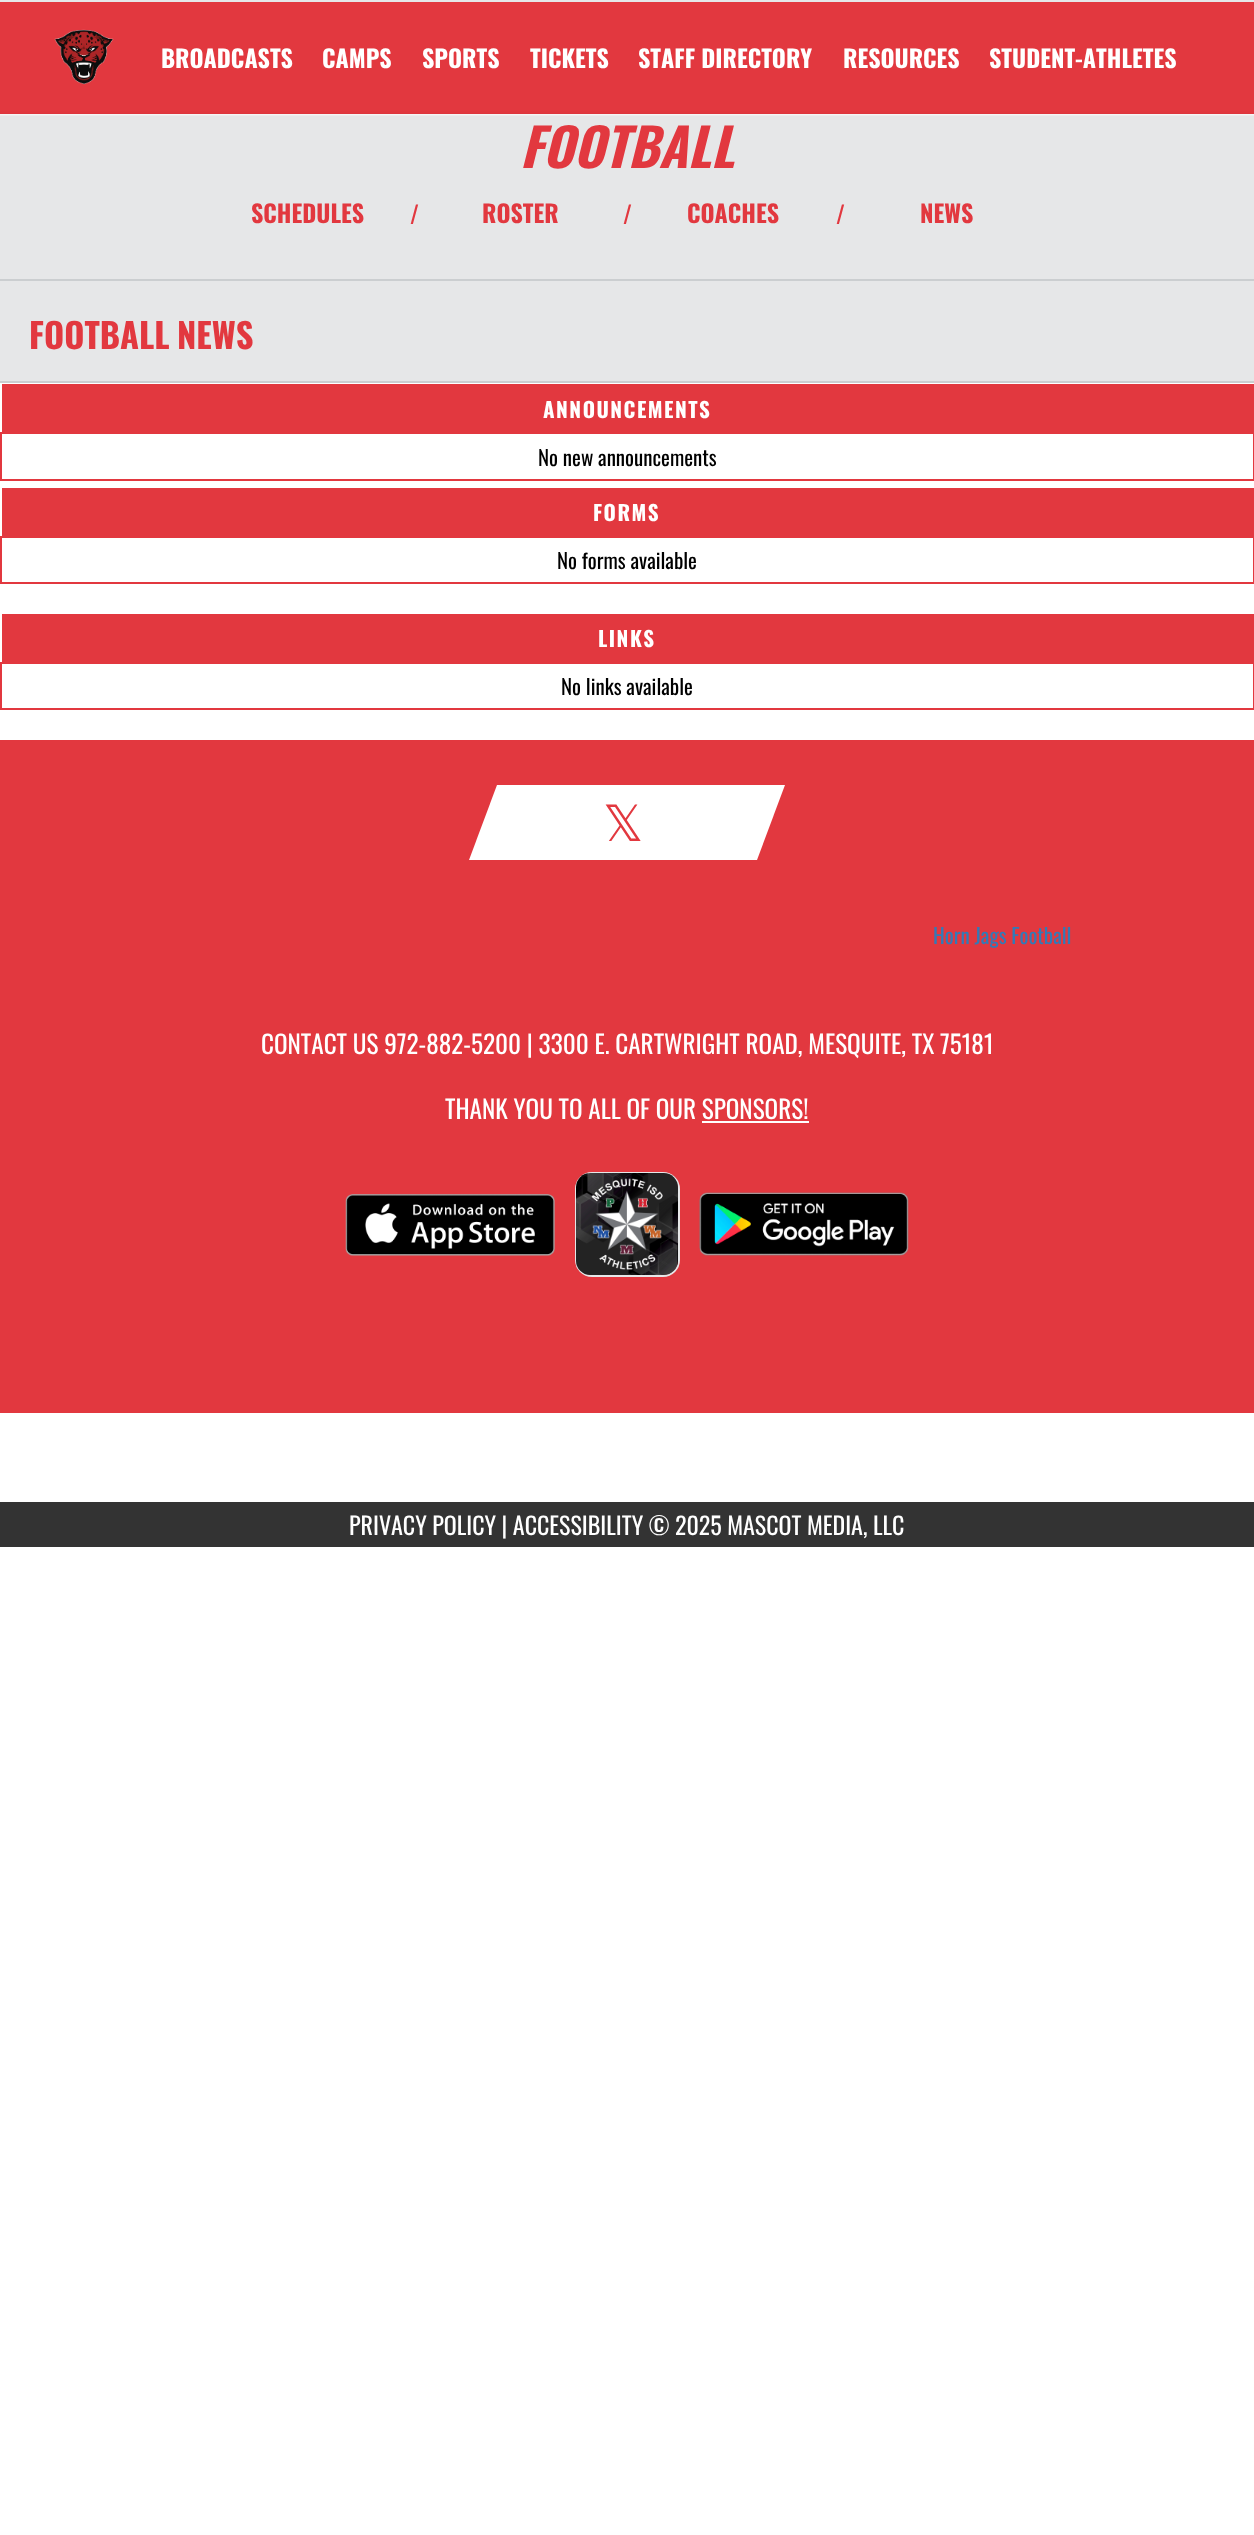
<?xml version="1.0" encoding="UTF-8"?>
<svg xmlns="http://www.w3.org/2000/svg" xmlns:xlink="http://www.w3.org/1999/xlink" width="1254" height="2535">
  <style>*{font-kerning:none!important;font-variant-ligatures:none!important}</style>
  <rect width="100%" height="100%" fill="#ffffff" />
  <rect width="1254" height="2" fill="#e6e7e8" />
  <rect y="2" width="1254" height="112" fill="#e2383f" />
  <image x="54" y="29" width="60" height="56" xlink:href="image1.png" />
  <rect x="-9" y="119" width="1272" height="163" fill="#000000" fill-opacity="0.5" filter="blur(3px)" />
  <rect y="116" width="1254" height="163" fill="#e6e7e8" />
  <rect x="-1" y="280" width="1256" height="102" fill="#e6e7e8" stroke="#cbced0" stroke-width="2" />
  <rect x="2" y="384" width="1252" height="48" fill="#e2383f" />
  <rect y="432" width="1254" height="2" fill="#e2383f" />
  <rect x="1253" y="432" width="1" height="48" fill="#e2383f" />
  <rect y="479" width="1254" height="2" fill="#e2383f" />
  <rect y="432" width="2" height="48" fill="#e2383f" />
  <rect x="2" y="488" width="1252" height="48" fill="#e2383f" />
  <rect y="536" width="1254" height="2" fill="#e2383f" />
  <rect x="1253" y="536" width="1" height="48" fill="#e2383f" />
  <rect y="582" width="1254" height="2" fill="#e2383f" />
  <rect y="536" width="2" height="48" fill="#e2383f" />
  <rect x="2" y="614" width="1252" height="48" fill="#e2383f" />
  <rect y="662" width="1254" height="2" fill="#e2383f" />
  <rect x="1253" y="662" width="1" height="48" fill="#e2383f" />
  <rect y="708" width="1254" height="2" fill="#e2383f" />
  <rect y="662" width="2" height="48" fill="#e2383f" />
  <rect y="740" width="1254" height="673" fill="#e2383f" />
  <path d="M 497 785 h 288 l -28 75 h -288 z" fill="#ffffff" />
  <rect x="702" y="1121" width="107" height="2" fill="#ffffff" />
  <image x="345" y="1194" width="210" height="62" xlink:href="image2.png" />
  <rect x="576" y="1173" width="103" height="103" rx="16" fill="none" stroke="#e6e7e8" stroke-width="2" />
  <image x="576" y="1173" width="102" height="102" xlink:href="image3.png" />
  <image x="699" y="1192" width="210" height="64" xlink:href="image4.png" />
  <rect y="1502" width="1254" height="45" fill="#333333" />
  <text x="161" y="68" style="font-family: Oswald; font-size: 24px; font-weight: bold; fill: #ffffff">BROADCASTS</text>
  <text x="322" y="68" style="font-family: Oswald; font-size: 24px; font-weight: bold; fill: #ffffff">CAMPS</text>
  <text x="422" y="68" style="font-family: Oswald; font-size: 24px; font-weight: bold; fill: #ffffff">SPORTS</text>
  <text x="530" y="68" style="font-family: Oswald; font-size: 24px; font-weight: bold; fill: #ffffff">TICKETS</text>
  <text x="638" y="68" style="font-family: Oswald; font-size: 24px; font-weight: bold; fill: #ffffff">STAFF DIRECTORY</text>
  <text x="843" y="68" style="font-family: Oswald; font-size: 24px; font-weight: bold; fill: #ffffff">RESOURCES</text>
  <text x="989" y="68" style="font-family: Oswald; font-size: 24px; font-weight: bold; fill: #ffffff">STUDENT-ATHLETES</text>
  <text x="520" y="168" style="font-family: Oswald; font-size: 52.5px; font-weight: bold; font-style: italic; fill: #e2383f">FOOTBALL</text>
  <text x="251" y="223" style="font-family: Oswald; font-size: 24px; font-weight: bold; fill: #e2383f">SCHEDULES</text>
  <text x="410" y="224" style="font-family: Oswald; font-size: 24px; fill: #e2383f">/</text>
  <text x="482" y="223" style="font-family: Oswald; font-size: 24px; font-weight: bold; fill: #e2383f">ROSTER</text>
  <text x="623" y="224" style="font-family: Oswald; font-size: 24px; fill: #e2383f">/</text>
  <text x="687" y="223" style="font-family: Oswald; font-size: 24px; font-weight: bold; fill: #e2383f">COACHES</text>
  <text x="836" y="224" style="font-family: Oswald; font-size: 24px; fill: #e2383f">/</text>
  <text x="920" y="223" style="font-family: Oswald; font-size: 24px; font-weight: bold; fill: #e2383f">NEWS</text>
  <text x="29" y="349" style="font-family: Oswald; font-size: 34.5px; font-weight: bold; fill: #e2383f">FOOTBALL</text>
  <text x="177" y="349" style="font-family: Oswald; font-size: 34.5px; font-weight: bold; fill: #e2383f">NEWS</text>
  <text x="543" y="418" style="font-family: Oswald; font-size: 21px; font-weight: bold; letter-spacing: 1.5px; fill: #ffffff">ANNOUNCEMENTS</text>
  <text x="538" y="466" style="font-family: Oswald; font-size: 21px; fill: #000000">No new announcements</text>
  <text x="593" y="521" style="font-family: Oswald; font-size: 21px; font-weight: bold; letter-spacing: 1.5px; fill: #ffffff">FORMS</text>
  <text x="557" y="569" style="font-family: Oswald; font-size: 21px; fill: #000000">No forms available</text>
  <text x="598" y="647" style="font-family: Oswald; font-size: 21px; font-weight: bold; letter-spacing: 1.5px; fill: #ffffff">LINKS</text>
  <text x="561" y="695" style="font-family: Oswald; font-size: 21px; fill: #000000">No links available</text>
  <text x="603" y="841" style="font-family: DejaVu Sans; font-size: 50px; letter-spacing: 8px; fill: #e2383f">𝕏</text>
  <text x="933" y="944" style="font-family: Oswald; font-size: 21px; fill: #337ab7">Horn Jags Football</text>
  <text x="261" y="1054" style="font-family: Oswald; font-size: 25.2px; fill: #ffffff">CONTACT US 972-882-5200 | 3300 E. CARTWRIGHT ROAD, MESQUITE, TX 75181</text>
  <text x="445" y="1119" style="font-family: Oswald; font-size: 25.2px; fill: #ffffff">THANK YOU TO ALL OF OUR SPONSORS!</text>
  <text x="349" y="1535" style="font-family: Oswald; font-size: 24px; fill: #ffffff">PRIVACY POLICY | ACCESSIBILITY © 2025 MASCOT MEDIA, LLC</text>
</svg>
